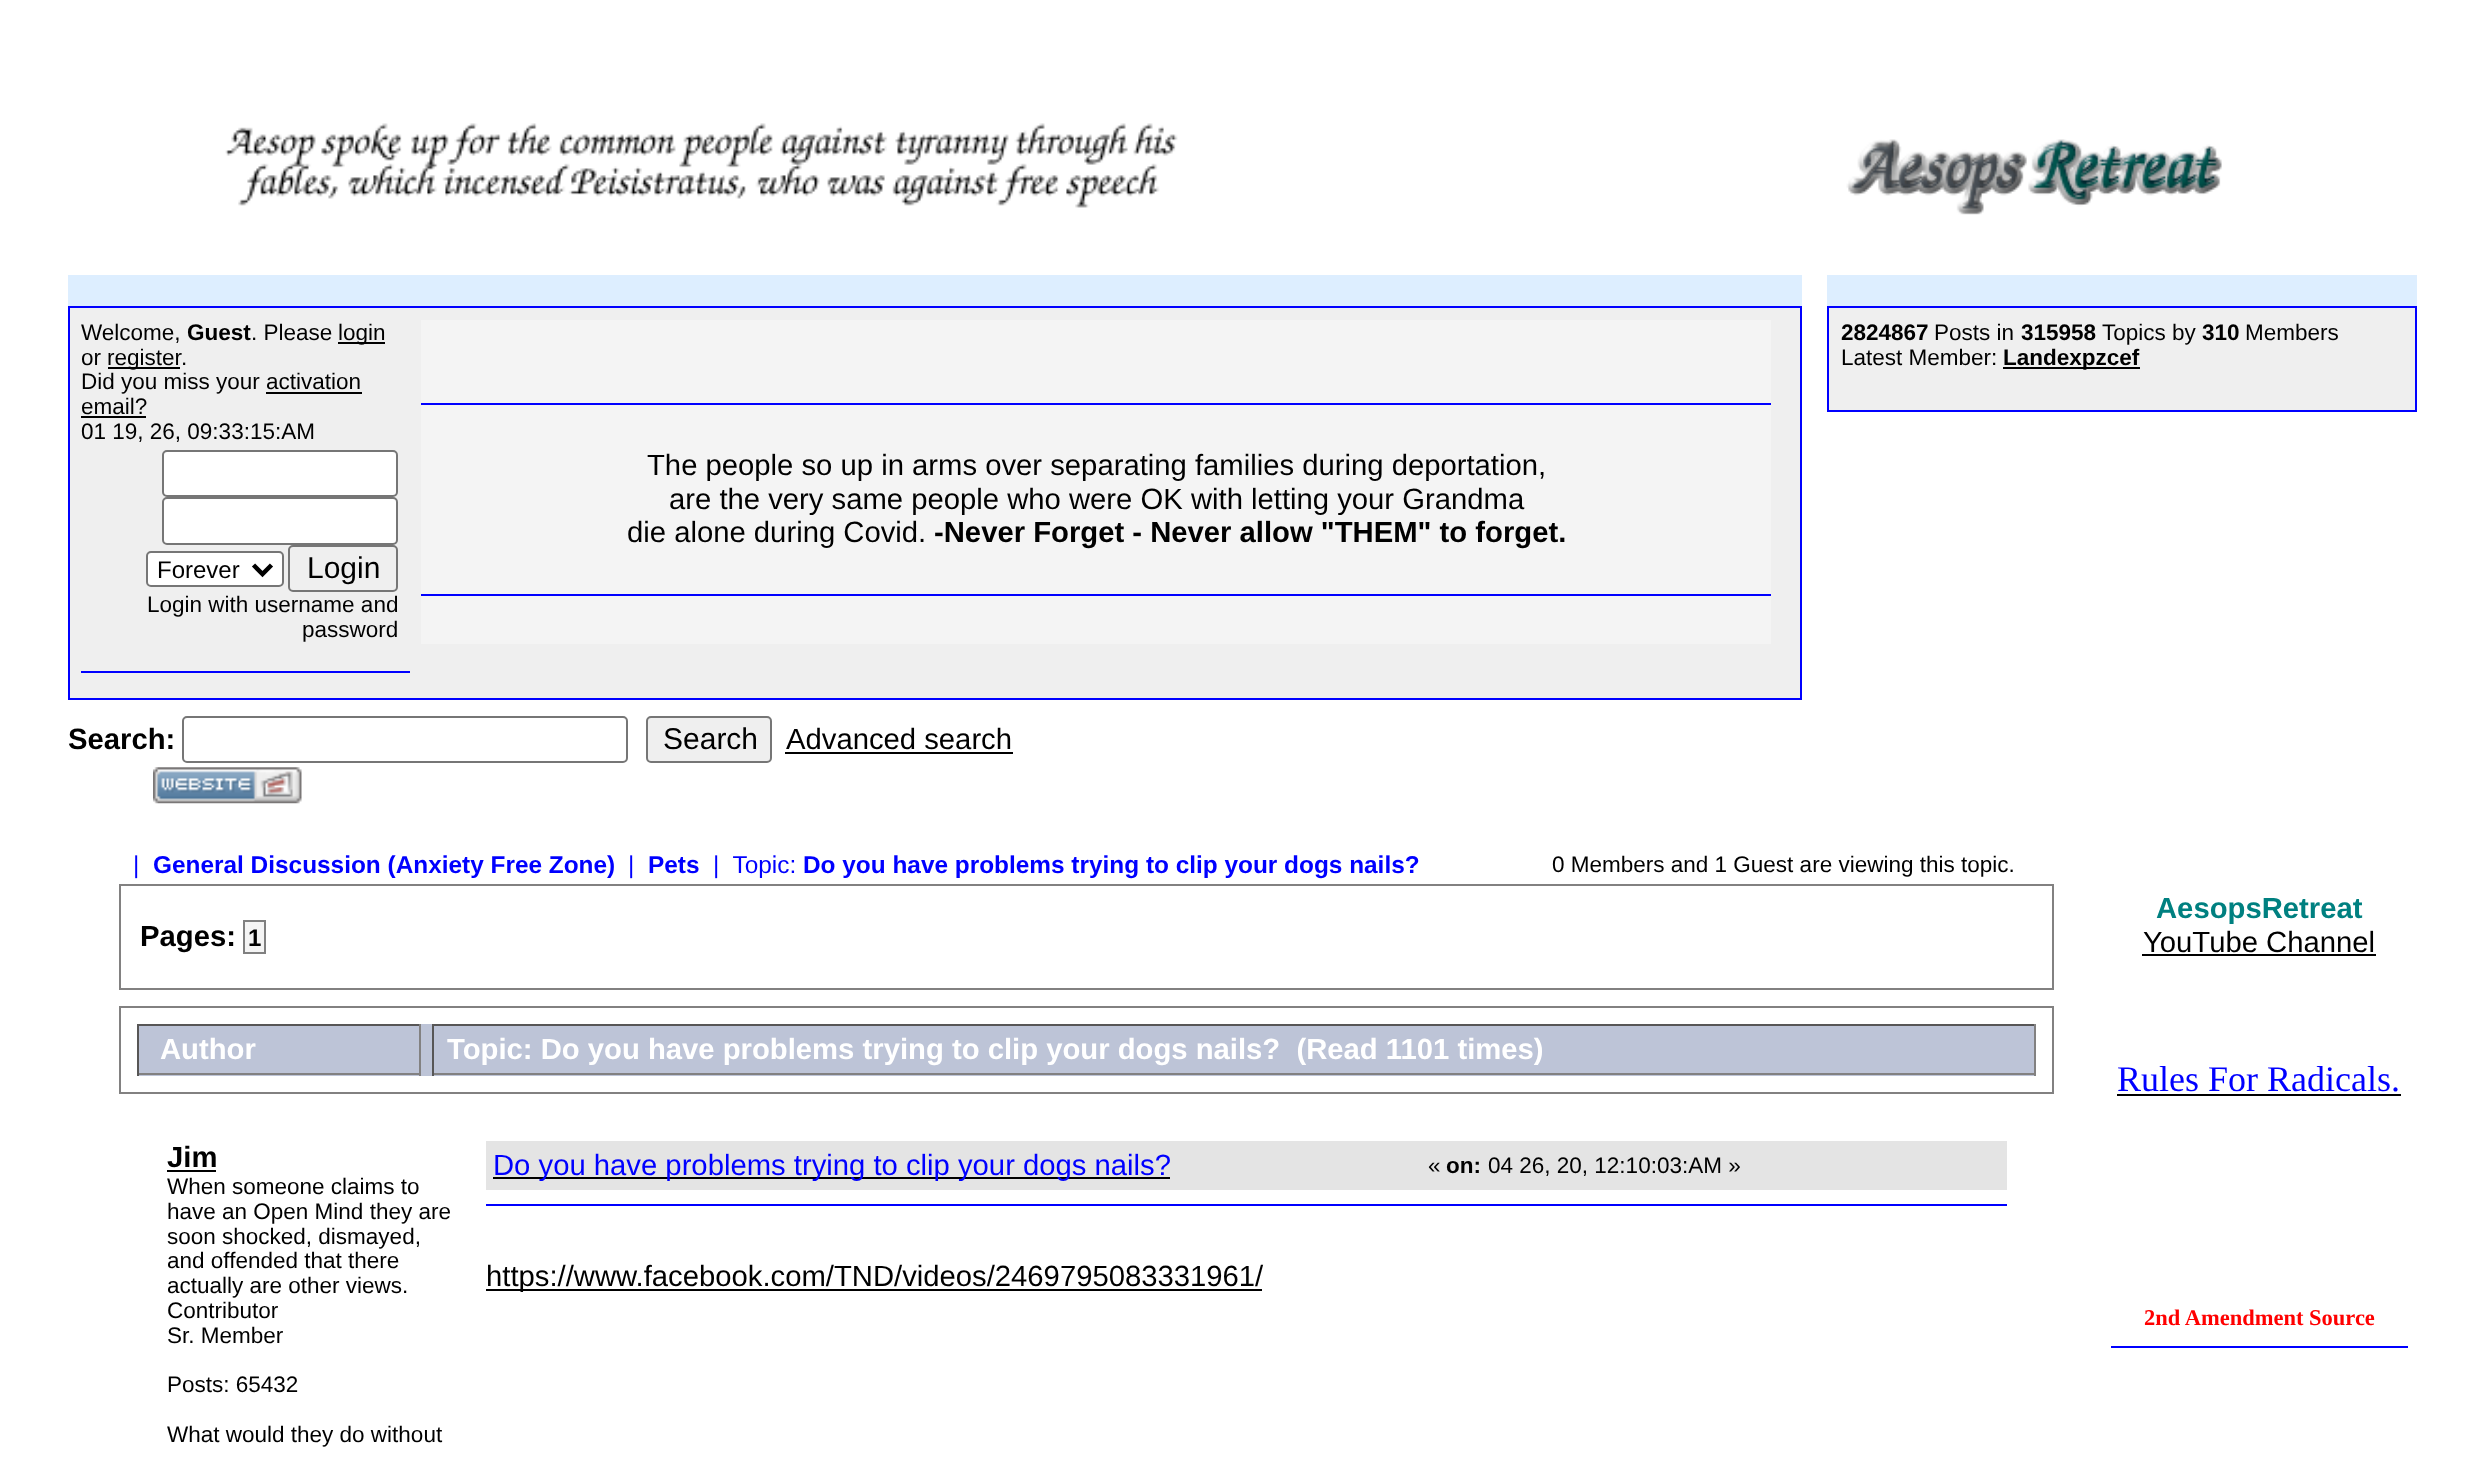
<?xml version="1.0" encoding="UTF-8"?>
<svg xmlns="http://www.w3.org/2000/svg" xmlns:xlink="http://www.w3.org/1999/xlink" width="2484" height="1460">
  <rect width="100%" height="100%" fill="#ffffff" />
  <image x="225" y="123" width="953" height="85" xlink:href="image1.png" />
  <image x="1846" y="139" width="376" height="76" xlink:href="image2.png" />
  <rect x="68" y="275" width="1734" height="31" fill="#ddeeff" />
  <rect x="69" y="307" width="1732" height="392" fill="#efefef" stroke="#0000ff" stroke-width="2" />
  <rect x="338" y="342" width="47" height="2" fill="#000000" />
  <rect x="108" y="367" width="72" height="2" fill="#000000" />
  <rect x="266" y="392" width="96" height="2" fill="#000000" />
  <rect x="81" y="416" width="65" height="2" fill="#000000" />
  <rect x="163" y="451" width="234" height="45" rx="4" fill="#ffffff" stroke="#767676" stroke-width="2" />
  <rect x="163" y="498" width="234" height="46" rx="4" fill="#ffffff" stroke="#767676" stroke-width="2" />
  <rect x="147" y="552" width="136" height="34" rx="4" fill="#ffffff" stroke="#767676" stroke-width="2" />
  <path d="M 253.5 565 l 9 9 l 9 -9" fill="none" stroke="#000000" stroke-width="4.5" />
  <rect x="289" y="546" width="108" height="45" rx="4" fill="none" stroke="#767676" stroke-width="2" />
  <rect x="421" y="320" width="1350" height="324" fill="#f4f4f4" />
  <rect x="421" y="403" width="1350" height="2" fill="#0000ff" />
  <rect x="421" y="594" width="1350" height="2" fill="#0000ff" />
  <rect x="81" y="671" width="329" height="2" fill="#0000ff" />
  <rect x="183" y="717" width="444" height="45" rx="4" fill="none" stroke="#767676" stroke-width="2" />
  <rect x="647" y="717" width="124" height="45" rx="4" fill="#efefef" stroke="#767676" stroke-width="2" />
  <rect x="785" y="752" width="228" height="2" fill="#000000" />
  <rect x="1827" y="275" width="590" height="31" fill="#ddeeff" />
  <rect x="1828" y="307" width="588" height="104" fill="#efefef" stroke="#0000ff" stroke-width="2" />
  <rect x="2003" y="367" width="137" height="2" fill="#000000" />
  <image x="153" y="767" width="149" height="37" xlink:href="image3.png" />
  <rect x="120" y="885" width="1933" height="104" fill="none" stroke="#828181" stroke-width="2" />
  <rect x="244" y="921" width="21" height="32" fill="#f4f4f4" stroke="#808080" stroke-width="2" />
  <rect x="120" y="1007" width="1933" height="86" fill="none" stroke="#828181" stroke-width="2" />
  <rect x="139" y="1024" width="1895" height="52" fill="#bdc4d7" />
  <rect x="137" y="1024" width="284" height="2" fill="#575656" />
  <rect x="419" y="1024" width="2" height="52" fill="#828181" />
  <rect x="137" y="1073" width="284" height="2" fill="#828181" />
  <rect x="137" y="1024" width="2" height="52" fill="#575656" />
  <rect x="432" y="1024" width="1604" height="2" fill="#575656" />
  <rect x="2034" y="1024" width="2" height="52" fill="#828181" />
  <rect x="432" y="1073" width="1604" height="2" fill="#828181" />
  <rect x="432" y="1024" width="2" height="52" fill="#575656" />
  <rect x="167" y="1170" width="49" height="2" fill="#000000" />
  <rect x="486" y="1141" width="1521" height="49" fill="#e4e4e4" />
  <rect x="493" y="1177" width="677" height="2" fill="#000000" />
  <rect x="486" y="1204" width="1521" height="2" fill="#0000ff" />
  <rect x="486" y="1289" width="776" height="2" fill="#000000" />
  <rect x="2142" y="954" width="234" height="2" fill="#000000" />
  <rect x="2117" y="1094" width="284" height="2" fill="#000000" />
  <rect x="2111" y="1346" width="297" height="2" fill="#0000ff" />
  <text x="81" y="340" style="font-family: Liberation Sans; font-size: 22.5px; fill: #000000">Welcome,</text>
  <text x="187" y="340" style="font-family: Liberation Sans; font-size: 22.5px; font-weight: bold; fill: #000000">Guest</text>
  <text x="251" y="340" style="font-family: Liberation Sans; font-size: 22.5px; fill: #000000">. Please</text>
  <text x="338" y="340" style="font-family: Liberation Sans; font-size: 22.5px; fill: #000000">login</text>
  <text x="81" y="365" style="font-family: Liberation Sans; font-size: 22.5px; fill: #000000">or</text>
  <text x="107" y="365" style="font-family: Liberation Sans; font-size: 22.5px; fill: #000000">register</text>
  <text x="181" y="365" style="font-family: Liberation Sans; font-size: 22.5px; fill: #000000">.</text>
  <text x="81" y="389" style="font-family: Liberation Sans; font-size: 22.5px; fill: #000000">Did you miss your activation</text>
  <text x="81" y="414" style="font-family: Liberation Sans; font-size: 22.5px; fill: #000000">email?</text>
  <text x="81" y="439" style="font-family: Liberation Sans; font-size: 22.5px; fill: #000000">01 19, 26, 09:33:15:AM</text>
  <text x="157" y="578" style="font-family: Liberation Sans; font-size: 24px; fill: #000000">Forever</text>
  <text x="307" y="578" style="font-family: Liberation Sans; font-size: 30px; fill: #000000">Login</text>
  <text x="147" y="612" style="font-family: Liberation Sans; font-size: 22.5px; fill: #000000">Login with username and</text>
  <text x="302" y="637" style="font-family: Liberation Sans; font-size: 22.5px; fill: #000000">password</text>
  <text x="647" y="475" style="font-family: Liberation Sans; font-size: 29.25px; fill: #000000">The people so up in arms over separating families during deportation,</text>
  <text x="669" y="509" style="font-family: Liberation Sans; font-size: 29.25px; fill: #000000">are the very same people who were OK with letting your Grandma</text>
  <text x="627" y="542" style="font-family: Liberation Sans; font-size: 29.25px; fill: #000000">die alone during Covid.</text>
  <text x="934" y="542" style="font-family: Liberation Sans; font-size: 29.25px; font-weight: bold; fill: #000000">-Never Forget - Never allow "THEM" to forget.</text>
  <text x="68" y="749" style="font-family: Liberation Sans; font-size: 29.25px; font-weight: bold; fill: #000000">Search:</text>
  <text x="663" y="749" style="font-family: Liberation Sans; font-size: 30px; fill: #000000">Search</text>
  <text x="786" y="749" style="font-family: Liberation Sans; font-size: 29.25px; fill: #000000">Advanced search</text>
  <text x="1841" y="340" style="font-family: Liberation Sans; font-size: 22.5px; font-weight: bold; fill: #000000">2824867</text>
  <text x="1934" y="340" style="font-family: Liberation Sans; font-size: 22.5px; fill: #000000">Posts in</text>
  <text x="2021" y="340" style="font-family: Liberation Sans; font-size: 22.5px; font-weight: bold; fill: #000000">315958</text>
  <text x="2102" y="340" style="font-family: Liberation Sans; font-size: 22.5px; fill: #000000">Topics by</text>
  <text x="2202" y="340" style="font-family: Liberation Sans; font-size: 22.5px; font-weight: bold; fill: #000000">310</text>
  <text x="2245" y="340" style="font-family: Liberation Sans; font-size: 22.5px; fill: #000000">Members</text>
  <text x="1841" y="365" style="font-family: Liberation Sans; font-size: 22.5px; fill: #000000">Latest Member:</text>
  <text x="2003" y="365" style="font-family: Liberation Sans; font-size: 22.5px; font-weight: bold; fill: #000000">Landexpzcef</text>
  <text x="133" y="873" style="font-family: Liberation Sans; font-size: 24.4px; fill: #0000ff">|</text>
  <text x="153" y="873" style="font-family: Liberation Sans; font-size: 24.4px; font-weight: bold; fill: #0000ff">General Discussion (Anxiety Free Zone)</text>
  <text x="628" y="873" style="font-family: Liberation Sans; font-size: 24.4px; fill: #0000ff">|</text>
  <text x="648" y="873" style="font-family: Liberation Sans; font-size: 24.4px; font-weight: bold; fill: #0000ff">Pets</text>
  <text x="713" y="873" style="font-family: Liberation Sans; font-size: 24.4px; fill: #0000ff" xml:space="preserve">|  Topic:</text>
  <text x="803" y="873" style="font-family: Liberation Sans; font-size: 24.4px; font-weight: bold; fill: #0000ff">Do you have problems trying to clip your dogs nails?</text>
  <text x="1552" y="872" style="font-family: Liberation Sans; font-size: 22.5px; fill: #000000">0 Members and 1 Guest are viewing this topic.</text>
  <text x="140" y="946" style="font-family: Liberation Sans; font-size: 29.25px; font-weight: bold; fill: #000000">Pages:</text>
  <text x="248" y="946" style="font-family: Liberation Sans; font-size: 24px; font-weight: bold; fill: #000000">1</text>
  <text x="160" y="1059" style="font-family: Liberation Sans; font-size: 29.25px; font-weight: bold; fill: #ffffff">Author</text>
  <text x="447" y="1059" style="font-family: Liberation Sans; font-size: 29.25px; font-weight: bold; fill: #ffffff" xml:space="preserve">Topic: Do you have problems trying to clip your dogs nails?  (Read 1101 times)</text>
  <text x="167" y="1167" style="font-family: Liberation Sans; font-size: 29.25px; font-weight: bold; fill: #000000">Jim</text>
  <text x="167" y="1194" style="font-family: Liberation Sans; font-size: 22.5px; fill: #000000">When someone claims to</text>
  <text x="167" y="1219" style="font-family: Liberation Sans; font-size: 22.5px; fill: #000000">have an Open Mind they are</text>
  <text x="167" y="1244" style="font-family: Liberation Sans; font-size: 22.5px; fill: #000000">soon shocked, dismayed,</text>
  <text x="167" y="1268" style="font-family: Liberation Sans; font-size: 22.5px; fill: #000000">and offended that there</text>
  <text x="167" y="1293" style="font-family: Liberation Sans; font-size: 22.5px; fill: #000000">actually are other views.</text>
  <text x="167" y="1318" style="font-family: Liberation Sans; font-size: 22.5px; fill: #000000">Contributor</text>
  <text x="167" y="1343" style="font-family: Liberation Sans; font-size: 22.5px; fill: #000000">Sr. Member</text>
  <text x="167" y="1392" style="font-family: Liberation Sans; font-size: 22.5px; fill: #000000">Posts: 65432</text>
  <text x="167" y="1442" style="font-family: Liberation Sans; font-size: 22.5px; fill: #000000">What would they do without</text>
  <text x="493" y="1175" style="font-family: Liberation Sans; font-size: 29.25px; fill: #0000ff">Do you have problems trying to clip your dogs nails?</text>
  <text x="1428" y="1173" style="font-family: Liberation Sans; font-size: 22.5px; fill: #000000">«</text>
  <text x="1446" y="1173" style="font-family: Liberation Sans; font-size: 22.5px; font-weight: bold; fill: #000000">on:</text>
  <text x="1488" y="1173" style="font-family: Liberation Sans; font-size: 22.5px; fill: #000000">04 26, 20, 12:10:03:AM »</text>
  <text x="486" y="1286" style="font-family: Liberation Sans; font-size: 29.25px; fill: #000000">https://www.facebook.com/TND/videos/2469795083331961/</text>
  <text x="2156" y="918" style="font-family: Liberation Sans; font-size: 29.25px; font-weight: bold; fill: #008080">AesopsRetreat</text>
  <text x="2143" y="952" style="font-family: Liberation Sans; font-size: 29.25px; fill: #000000">YouTube Channel</text>
  <text x="2117" y="1091" style="font-family: Liberation Serif; font-size: 36px; fill: #0000ff">Rules For Radicals.</text>
  <text x="2144" y="1325" style="font-family: Liberation Serif; font-size: 22.5px; font-weight: bold; fill: #ff0000">2nd Amendment Source</text>
</svg>
